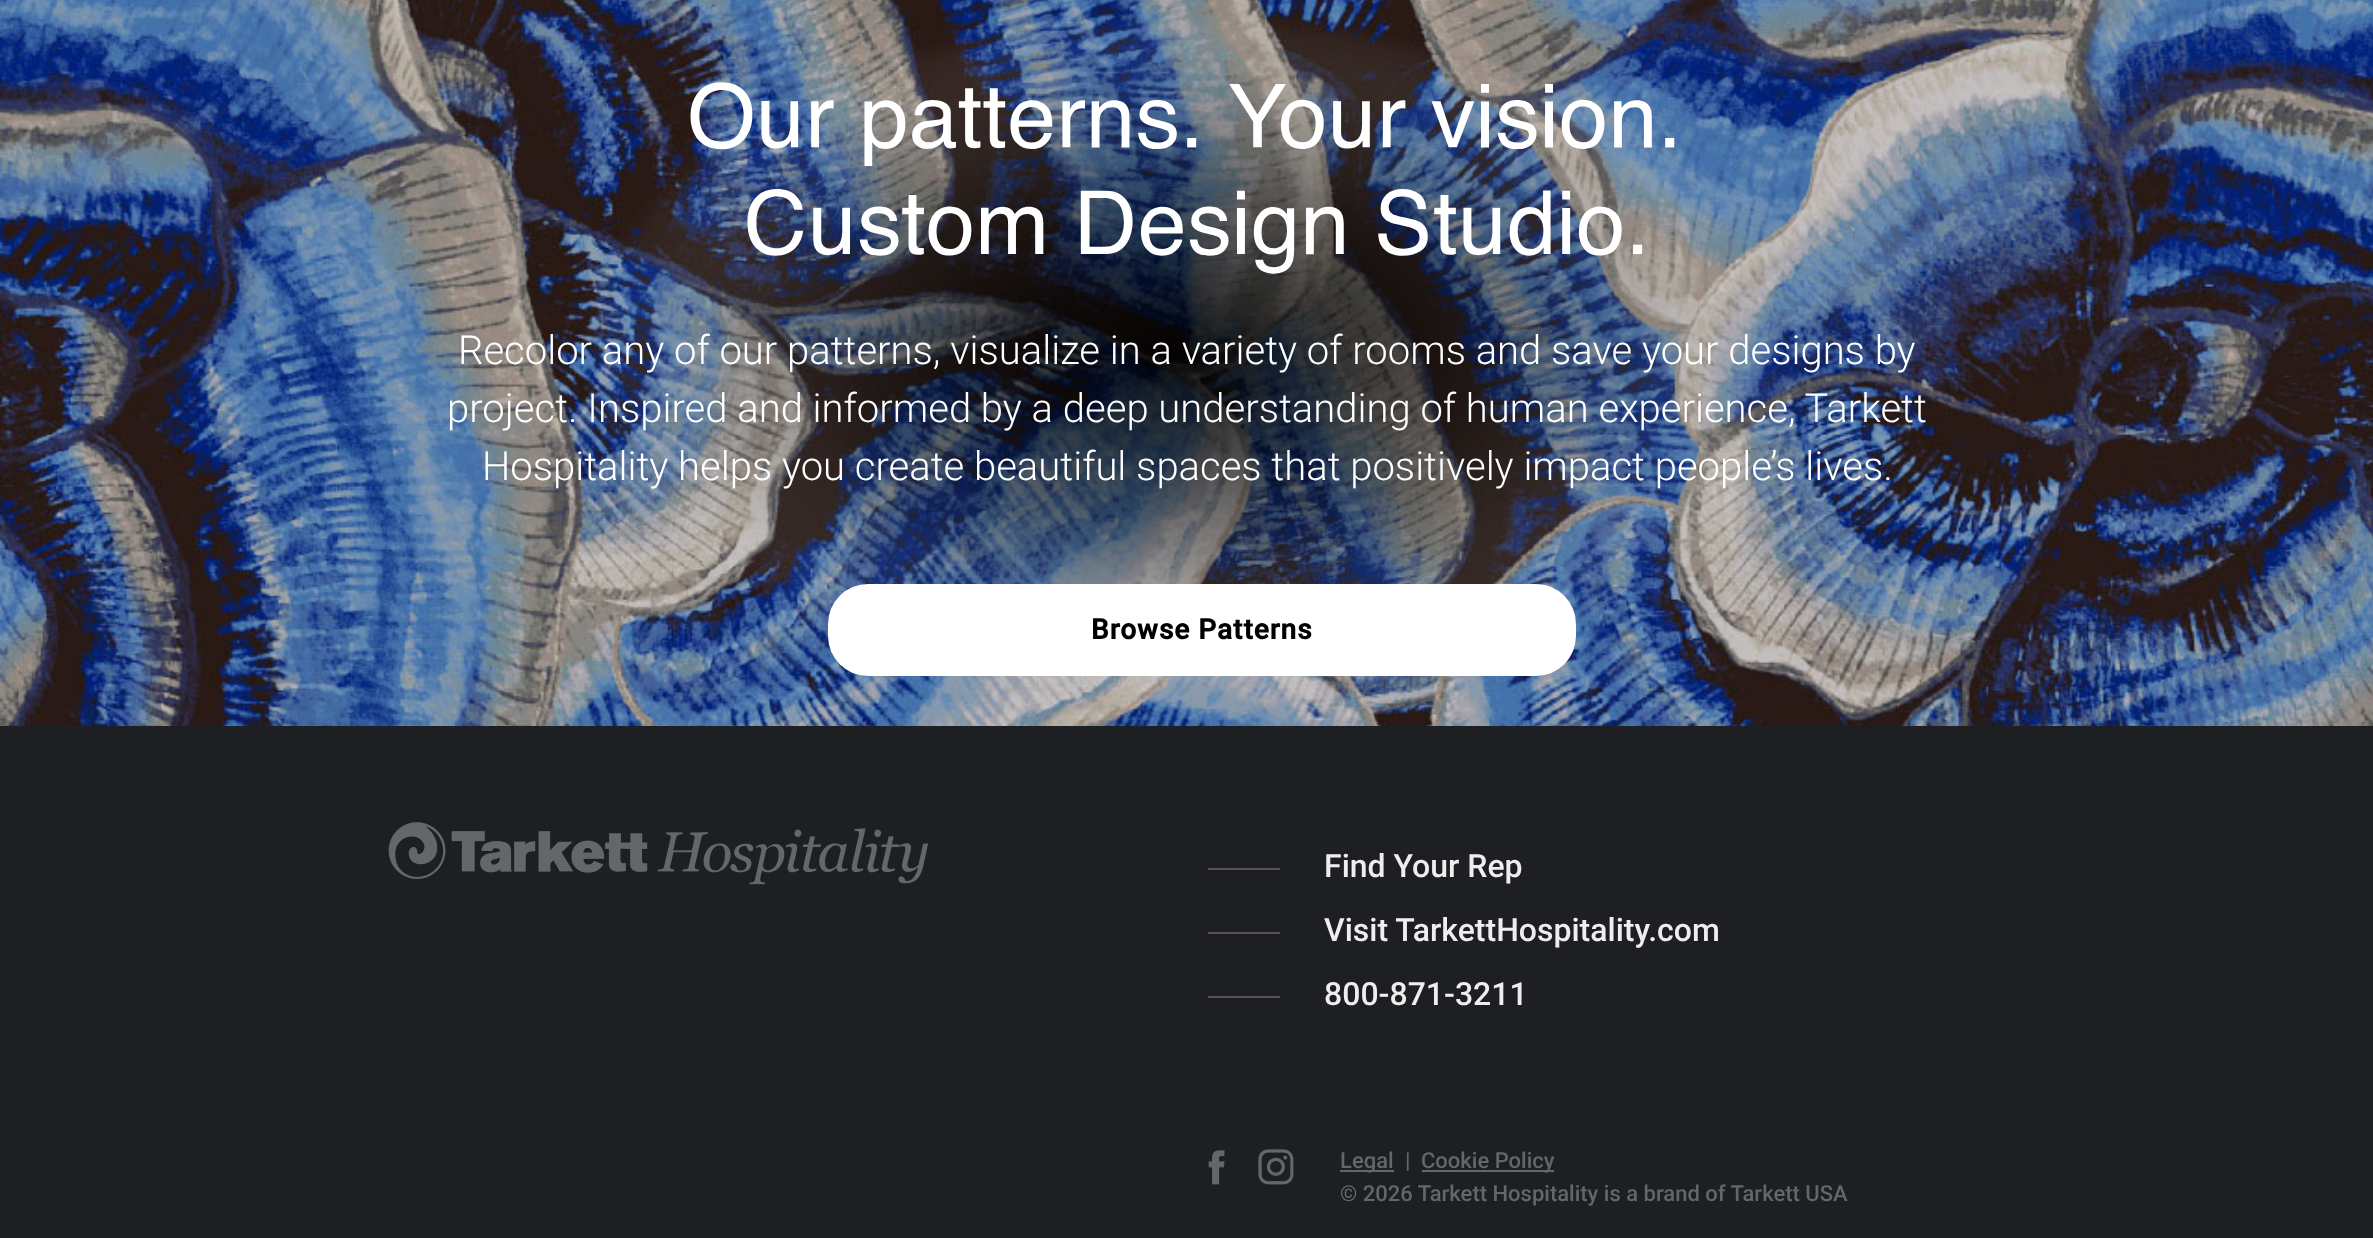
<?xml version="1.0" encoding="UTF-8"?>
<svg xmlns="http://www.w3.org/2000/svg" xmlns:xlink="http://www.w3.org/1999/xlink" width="2373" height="1238">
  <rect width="100%" height="100%" fill="#1d1f22" />
  <image x="0" y="0" width="2373" height="726" xlink:href="image1.png" />
  <image x="690" y="82" width="985" height="192" xlink:href="image2.png" />
  <rect x="828" y="584" width="748" height="92" rx="40" fill="#ffffff" />
  <image x="388" y="822" width="540" height="63" xlink:href="image3.png" />
  <rect x="1208" y="868" width="72" height="2" fill="#555555" />
  <rect x="1208" y="932" width="72" height="2" fill="#555555" />
  <rect x="1208" y="996" width="72" height="2" fill="#555555" />
  <image x="1208" y="1150" width="17" height="35" xlink:href="image4.png" />
  <image x="1258" y="1149" width="36" height="36" xlink:href="image5.png" />
  <rect x="1340" y="1170" width="54" height="2" fill="#64666b" />
  <rect x="1422" y="1170" width="132" height="2" fill="#64666b" />
  <text x="458" y="364" style="font-family: Roboto; font-size: 40px; font-weight: 300; fill: #ffffff">Recolor any of our patterns, visualize in a variety of rooms and save your designs by</text>
  <text x="447" y="422" style="font-family: Roboto; font-size: 40px; font-weight: 300; fill: #ffffff">project. Inspired and informed by a deep understanding of human experience, Tarkett</text>
  <text x="482" y="480" style="font-family: Roboto; font-size: 40px; font-weight: 300; fill: #ffffff">Hospitality helps you create beautiful spaces that positively impact people’s lives.</text>
  <text x="1091" y="639" style="font-family: Roboto; font-size: 28px; font-weight: bold; letter-spacing: 1px; fill: #000000">Browse Patterns</text>
  <text x="1324" y="877" style="font-family: Roboto; font-size: 32px; font-weight: 500; fill: #eeeeee">Find Your Rep</text>
  <text x="1324" y="941" style="font-family: Roboto; font-size: 32px; font-weight: 500; fill: #eeeeee">Visit TarkettHospitality.com</text>
  <text x="1324" y="1005" style="font-family: Roboto; font-size: 32px; font-weight: 500; fill: #eeeeee">800-871-3211</text>
  <text x="1340" y="1168" style="font-family: Roboto; font-size: 22px; font-weight: 500; fill: #64666b">Legal</text>
  <text x="1405" y="1168" style="font-family: Roboto; font-size: 22px; font-weight: 500; fill: #64666b">|</text>
  <text x="1421" y="1168" style="font-family: Roboto; font-size: 22px; font-weight: 500; fill: #64666b">Cookie Policy</text>
  <text x="1340" y="1201" style="font-family: Roboto; font-size: 22px; font-weight: 500; fill: #64666b">© 2026 Tarkett Hospitality is a brand of Tarkett USA</text>
</svg>
